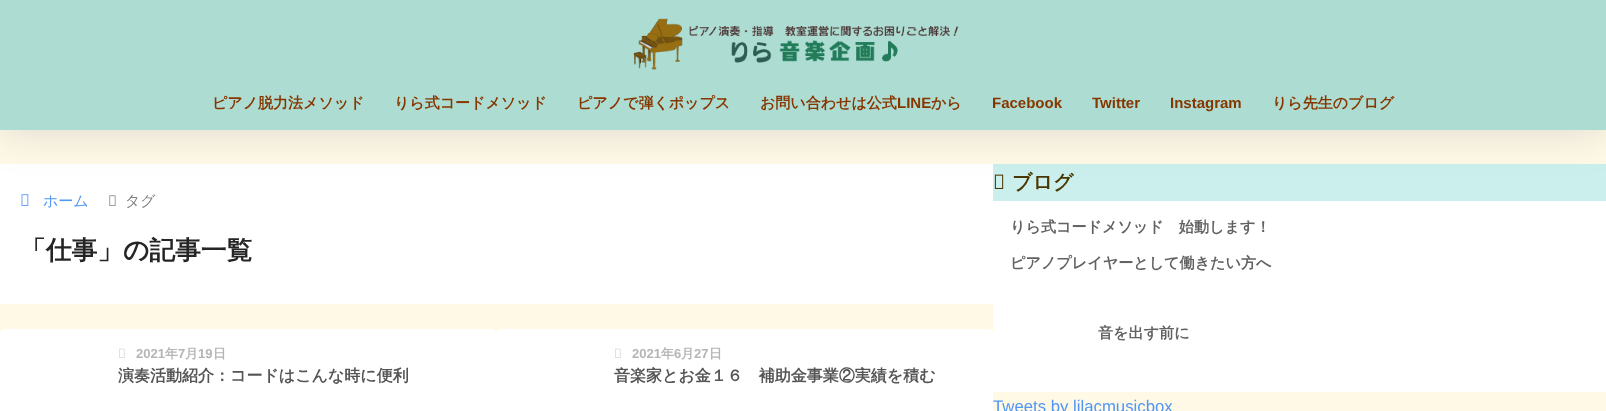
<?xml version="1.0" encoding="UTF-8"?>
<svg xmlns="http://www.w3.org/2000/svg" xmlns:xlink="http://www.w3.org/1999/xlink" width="1606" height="411">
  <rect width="100%" height="100%" fill="#fff9e6" />
  <rect y="164" width="993" height="140" fill="#ffffff" />
  <image x="21" y="194" width="8" height="12" xlink:href="image2.png" />
  <image x="109" y="195" width="7" height="11" xlink:href="image3.png" />
  <rect x="993" y="164" width="613" height="37" fill="#cbefec" />
  <image x="994" y="174" width="10" height="15" xlink:href="image5.png" />
  <rect width="1606" height="130" fill="#000c42" fill-opacity="0.15" filter="blur(22.5px)" />
  <rect width="1606" height="130" fill="#adddd2" />
  <image x="633" y="18" width="326" height="52" xlink:href="image1.png" />
  <rect y="329" width="496" height="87" rx="5" fill="#ffffff" />
  <image x="119" y="348" width="6" height="10" xlink:href="image4.png" />
  <rect x="496" y="329" width="497" height="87" rx="5" fill="#ffffff" />
  <image x="615" y="348" width="6" height="10" xlink:href="image4.png" />
  <rect x="993" y="201" width="613" height="191" fill="#ffffff" />
  <text x="212" y="108" style="font-family: WenQuanYi Zen Hei; font-size: 15px; font-weight: bold; fill: #873600">ピアノ脱力法メソッド</text>
  <text x="394" y="108" style="font-family: WenQuanYi Zen Hei; font-size: 15px; font-weight: bold; fill: #873600">りら式コードメソッド</text>
  <text x="577" y="108" style="font-family: WenQuanYi Zen Hei; font-size: 15px; font-weight: bold; fill: #873600">ピアノで弾くポップス</text>
  <text x="760" y="108" style="font-family: WenQuanYi Zen Hei; font-size: 15px; font-weight: bold; fill: #873600">お問い合わせは公式</text>
  <text x="897" y="108" style="font-family: Liberation Sans; font-size: 15px; font-weight: bold; fill: #873600">LINE</text>
  <text x="931" y="108" style="font-family: WenQuanYi Zen Hei; font-size: 15px; font-weight: bold; fill: #873600">から</text>
  <text x="992" y="108" style="font-family: Liberation Sans; font-size: 15px; font-weight: bold; fill: #873600">Facebook</text>
  <text x="1092" y="108" style="font-family: Liberation Sans; font-size: 15px; font-weight: bold; fill: #873600">Twitter</text>
  <text x="1170" y="108" style="font-family: Liberation Sans; font-size: 15px; font-weight: bold; fill: #873600">Instagram</text>
  <text x="1272" y="108" style="font-family: WenQuanYi Zen Hei; font-size: 15px; font-weight: bold; fill: #873600">りら先生のブログ</text>
  <text x="43" y="206" style="font-family: WenQuanYi Zen Hei; font-size: 15px; font-weight: 500; fill: #4f96f6">ホーム</text>
  <text x="125" y="206" style="font-family: WenQuanYi Zen Hei; font-size: 15px; font-weight: 500; fill: #808080">タグ</text>
  <text x="20" y="259" style="font-family: WenQuanYi Zen Hei; font-size: 25.75px; font-weight: bold; fill: #252525">「仕事」の記事一覧</text>
  <text x="136" y="358" style="font-family: Liberation Sans; font-size: 13px; font-weight: bold; fill: #b5b5b5">2021</text>
  <text x="165" y="358" style="font-family: WenQuanYi Zen Hei; font-size: 13px; font-weight: bold; fill: #b5b5b5">年</text>
  <text x="178" y="358" style="font-family: Liberation Sans; font-size: 13px; font-weight: bold; fill: #b5b5b5">7</text>
  <text x="185" y="358" style="font-family: WenQuanYi Zen Hei; font-size: 13px; font-weight: bold; fill: #b5b5b5">月</text>
  <text x="198" y="358" style="font-family: Liberation Sans; font-size: 13px; font-weight: bold; fill: #b5b5b5">19</text>
  <text x="213" y="358" style="font-family: WenQuanYi Zen Hei; font-size: 13px; font-weight: bold; fill: #b5b5b5">日</text>
  <text x="118" y="381" style="font-family: WenQuanYi Zen Hei; font-size: 16px; font-weight: bold; fill: #555555">演奏活動紹介：コードはこんな時に便利</text>
  <text x="632" y="358" style="font-family: Liberation Sans; font-size: 13px; font-weight: bold; fill: #b5b5b5">2021</text>
  <text x="661" y="358" style="font-family: WenQuanYi Zen Hei; font-size: 13px; font-weight: bold; fill: #b5b5b5">年</text>
  <text x="674" y="358" style="font-family: Liberation Sans; font-size: 13px; font-weight: bold; fill: #b5b5b5">6</text>
  <text x="681" y="358" style="font-family: WenQuanYi Zen Hei; font-size: 13px; font-weight: bold; fill: #b5b5b5">月</text>
  <text x="694" y="358" style="font-family: Liberation Sans; font-size: 13px; font-weight: bold; fill: #b5b5b5">27</text>
  <text x="709" y="358" style="font-family: WenQuanYi Zen Hei; font-size: 13px; font-weight: bold; fill: #b5b5b5">日</text>
  <text x="614" y="381" style="font-family: WenQuanYi Zen Hei; font-size: 16px; font-weight: bold; fill: #555555">音楽家とお金１６　補助金事業②実績を積む</text>
  <text x="1012" y="189" style="font-family: WenQuanYi Zen Hei; font-size: 20px; font-weight: bold; fill: #493600">ブログ</text>
  <text x="1010" y="232" style="font-family: WenQuanYi Zen Hei; font-size: 15.1px; font-weight: bold; fill: #626262">りら式コードメソッド　始動します！</text>
  <text x="1010" y="268" style="font-family: WenQuanYi Zen Hei; font-size: 15.1px; font-weight: bold; fill: #626262">ピアノプレイヤーとして働きたい方へ</text>
  <text x="1098" y="338" style="font-family: WenQuanYi Zen Hei; font-size: 15.1px; font-weight: bold; fill: #626262">音を出す前に</text>
  <text x="993" y="412" style="font-family: Liberation Sans; font-size: 16.75px; fill: #4f96f6">Tweets by lilacmusicbox</text>
</svg>
